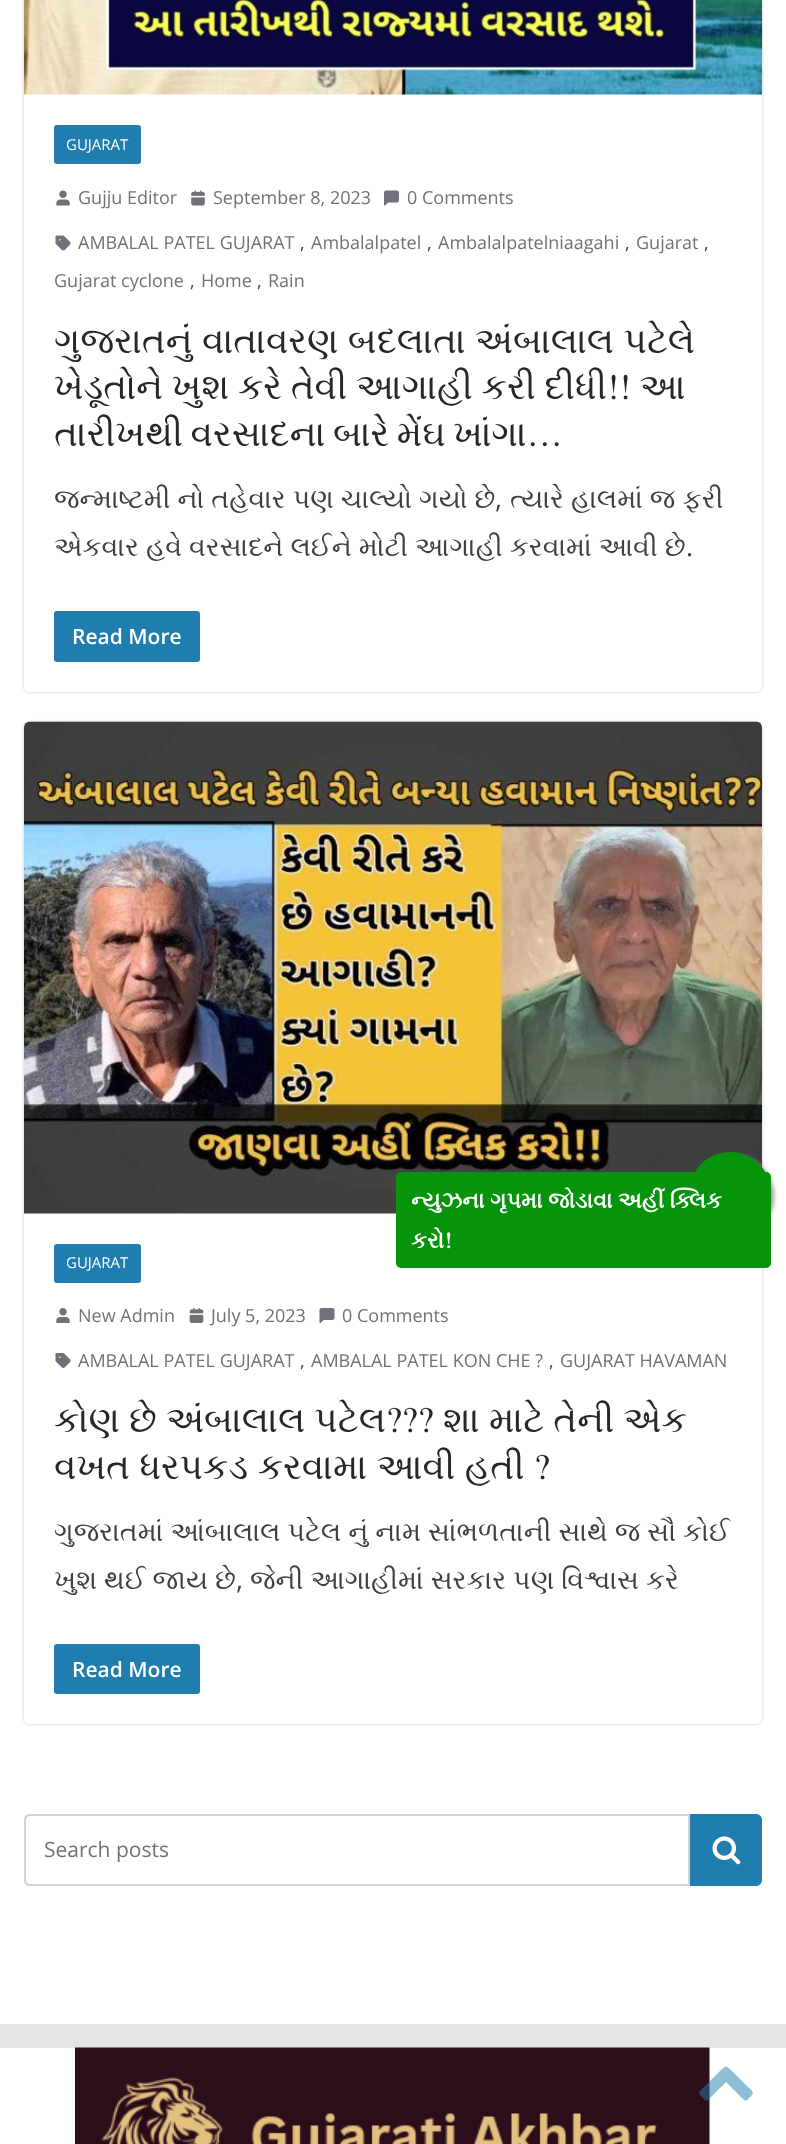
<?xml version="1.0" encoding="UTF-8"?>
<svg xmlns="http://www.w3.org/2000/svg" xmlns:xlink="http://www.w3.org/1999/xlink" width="786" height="2144">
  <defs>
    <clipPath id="clip1"><path d="M 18 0 h 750 v 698 h -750 z m 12 -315 h 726 c 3.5 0 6 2.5 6 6 v 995 c 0 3.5 -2.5 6 -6 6 h -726 c -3.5 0 -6 -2.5 -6 -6 v -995 c 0 -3.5 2.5 -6 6 -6 z" clip-rule="evenodd" /></clipPath>
    <clipPath id="clip2"><path d="M 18 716 h 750 v 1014 h -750 z m 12 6 h 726 c 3.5 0 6 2.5 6 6 v 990 c 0 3.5 -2.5 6 -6 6 h -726 c -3.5 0 -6 -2.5 -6 -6 v -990 c 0 -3.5 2.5 -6 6 -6 z" clip-rule="evenodd" /></clipPath>
  </defs>
  <rect width="100%" height="100%" fill="#e4e4e7" />
  <rect width="786" height="2024" fill="#ffffff" />
  <g clip-path="url(#clip1)">
    <rect x="24" y="-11" width="738" height="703" rx="6" fill="#000000" fill-opacity="0.24" filter="blur(1.5px)" />
  </g>
  <image x="24" y="0" width="738" height="95" xlink:href="image1.png" />
  <rect x="54" y="125" width="87" height="39" rx="3" fill="#207daf" />
  <image x="56" y="190" width="14" height="16" xlink:href="image2.png" />
  <image x="191" y="190" width="14" height="16" xlink:href="image3.png" />
  <image x="384" y="190" width="15" height="16" xlink:href="image4.png" />
  <image x="55" y="235" width="16" height="16" xlink:href="image5.png" />
  <rect x="54" y="611" width="146" height="51" rx="3" fill="#207daf" />
  <g clip-path="url(#clip2)">
    <rect x="24" y="722" width="738" height="1002" rx="6" fill="#000000" fill-opacity="0.24" filter="blur(1.5px)" />
  </g>
  <image x="24" y="721" width="738" height="493" xlink:href="image6.png" />
  <rect x="54" y="1244" width="87" height="39" rx="3" fill="#207daf" />
  <image x="56" y="1308" width="14" height="15" xlink:href="image7.png" />
  <image x="189" y="1308" width="15" height="15" xlink:href="image8.png" />
  <image x="319" y="1308" width="16" height="15" xlink:href="image9.png" />
  <image x="55" y="1353" width="16" height="15" xlink:href="image10.png" />
  <rect x="54" y="1644" width="146" height="50" rx="3" fill="#207daf" />
  <path d="M 30 1815 h 659 v 70 h -659 c -3 0 -5 -2 -5 -5 v -60 c 0 -3 2 -5 5 -5 z" fill="none" stroke="#d4d4d8" stroke-width="2" />
  <path d="M 690 1814 h 66 c 3.5 0 6 2.5 6 6 v 60 c 0 3.5 -2.5 6 -6 6 h -66 z" fill="#207daf" />
  <image x="712" y="1836" width="29" height="29" xlink:href="image11.png" />
  <rect y="2048" width="786" height="96" fill="#ffffff" />
  <image x="75" y="2047" width="635" height="97" xlink:href="image12.png" />
  <path d="M 752 2095 c -6 6 -5 8 -11 2 l -15 -15 l -15 15 c -5 6 -5 4 -10 -1 c -4 -4 -1 -5 3 -9 l 16 -16 c 7 -6 5 -6 12 0 l 16 16 c 1 1 7 5 4 8 z" fill="#207daf" fill-opacity="0.5" />
  <rect x="692" y="1155" width="82" height="83" rx="41" fill="#999999" filter="blur(2px)" />
  <rect x="689" y="1152" width="82" height="83" rx="41" fill="#05940b" />
  <rect x="396" y="1172" width="375" height="96" rx="5" fill="#05940b" />
  <text x="66" y="150" style="font-family: Open Sans; font-size: 15px; fill: #ffffff">GUJARAT</text>
  <text x="78" y="204" style="font-family: Open Sans; font-size: 18px; fill: #71717a">Gujju Editor</text>
  <text x="213" y="204" style="font-family: Open Sans; font-size: 18px; fill: #71717a">September 8, 2023</text>
  <text x="407" y="204" style="font-family: Open Sans; font-size: 18px; fill: #71717a">0 Comments</text>
  <text x="78" y="249" style="font-family: Open Sans; font-size: 18px; fill: #71717a">AMBALAL PATEL GUJARAT</text>
  <text x="300" y="249" style="font-family: Open Sans; font-size: 18px; fill: #3f3f46">,</text>
  <text x="311" y="249" style="font-family: Open Sans; font-size: 18px; fill: #71717a">Ambalalpatel</text>
  <text x="427" y="249" style="font-family: Open Sans; font-size: 18px; fill: #3f3f46">,</text>
  <text x="438" y="249" style="font-family: Open Sans; font-size: 18px; fill: #71717a">Ambalalpatelniaagahi</text>
  <text x="625" y="249" style="font-family: Open Sans; font-size: 18px; fill: #3f3f46">,</text>
  <text x="636" y="249" style="font-family: Open Sans; font-size: 18px; fill: #71717a">Gujarat</text>
  <text x="704" y="249" style="font-family: Open Sans; font-size: 18px; fill: #3f3f46">,</text>
  <text x="54" y="287" style="font-family: Open Sans; font-size: 18px; fill: #71717a">Gujarat cyclone</text>
  <text x="190" y="287" style="font-family: Open Sans; font-size: 18px; fill: #3f3f46">,</text>
  <text x="201" y="287" style="font-family: Open Sans; font-size: 18px; fill: #71717a">Home</text>
  <text x="257" y="287" style="font-family: Open Sans; font-size: 18px; fill: #3f3f46">,</text>
  <text x="268" y="287" style="font-family: Open Sans; font-size: 18px; fill: #71717a">Rain</text>
  <text x="54" y="353" word-spacing="0.5" style="font-family: FreeSerif; font-size: 36px; fill: #27272a">ગુજરાતનું વાતાવરણ બદલાતા અંબાલાલ પટેલે</text>
  <text x="54" y="399" word-spacing="-0.25" style="font-family: FreeSerif; font-size: 36px; fill: #27272a">ખેડૂતોને ખુશ કરે તેવી આગાહી કરી દીધી!! આ</text>
  <text x="54" y="446" word-spacing="-1.5" style="font-family: FreeSerif; font-size: 36px; fill: #27272a">તારીખથી વરસાદના બારે મેંઘ ખાંગા…</text>
  <text x="54" y="508" word-spacing="0.25" style="font-family: FreeSerif; font-size: 27px; fill: #3f3f46">જન્માષ્ટમી નો તહેવાર પણ ચાલ્યો ગયો છે</text>
  <text x="495" y="508" style="font-family: Open Sans; font-size: 27px; fill: #3f3f46">,</text>
  <text x="510" y="508" word-spacing="0.25" style="font-family: FreeSerif; font-size: 27px; fill: #3f3f46">ત્યારે હાલમાં જ ફરી</text>
  <text x="54" y="556" word-spacing="0.25" style="font-family: FreeSerif; font-size: 27px; fill: #3f3f46">એકવાર હવે વરસાદને લઈને મોટી આગાહી કરવામાં આવી છે</text>
  <text x="686" y="556" style="font-family: Open Sans; font-size: 27px; fill: #3f3f46">.</text>
  <text x="72" y="644" style="font-family: Open Sans; font-size: 21px; font-weight: 600; fill: #ffffff">Read More</text>
  <text x="66" y="1268" style="font-family: Open Sans; font-size: 15px; fill: #ffffff">GUJARAT</text>
  <text x="78" y="1322" style="font-family: Open Sans; font-size: 18px; fill: #71717a">New Admin</text>
  <text x="211" y="1322" style="font-family: Open Sans; font-size: 18px; fill: #71717a">July 5, 2023</text>
  <text x="342" y="1322" style="font-family: Open Sans; font-size: 18px; fill: #71717a">0 Comments</text>
  <text x="78" y="1367" style="font-family: Open Sans; font-size: 18px; fill: #71717a">AMBALAL PATEL GUJARAT</text>
  <text x="300" y="1367" style="font-family: Open Sans; font-size: 18px; fill: #3f3f46">,</text>
  <text x="311" y="1367" style="font-family: Open Sans; font-size: 18px; fill: #71717a">AMBALAL PATEL KON CHE ?</text>
  <text x="549" y="1367" style="font-family: Open Sans; font-size: 18px; fill: #3f3f46">,</text>
  <text x="560" y="1367" style="font-family: Open Sans; font-size: 18px; fill: #71717a">GUJARAT HAVAMAN</text>
  <text x="54" y="1432" word-spacing="0.25" style="font-family: FreeSerif; font-size: 36px; fill: #27272a">કોણ છે અંબાલાલ પટેલ??? શા માટે તેની એક</text>
  <text x="54" y="1479" word-spacing="0.5" style="font-family: FreeSerif; font-size: 36px; fill: #27272a">વખત ધરપકડ કરવામા આવી હતી ?</text>
  <text x="54" y="1541" word-spacing="0.25" style="font-family: FreeSerif; font-size: 27px; fill: #3f3f46">ગુજરાતમાં આંબાલાલ પટેલ નું નામ સાંભળતાની સાથે જ સૌ કોઈ</text>
  <text x="54" y="1589" word-spacing="0.25" style="font-family: FreeSerif; font-size: 27px; fill: #3f3f46">ખુશ થઈ જાય છે</text>
  <text x="236" y="1589" style="font-family: Open Sans; font-size: 27px; fill: #3f3f46">,</text>
  <text x="250" y="1589" word-spacing="0.25" style="font-family: FreeSerif; font-size: 27px; fill: #3f3f46">જેની આગાહીમાં સરકાર પણ વિશ્વાસ કરે</text>
  <text x="72" y="1677" style="font-family: Open Sans; font-size: 21px; font-weight: 600; fill: #ffffff">Read More</text>
  <text x="44" y="1857" style="font-family: Open Sans; font-size: 21px; fill: #71717a">Search posts</text>
  <text x="411" y="1208" style="font-family: FreeSerif; font-size: 22.5px; font-weight: bold; fill: #ffffff">ન્યુઝના ગૃપમા જોડાવા અહીં ક્લિક</text>
  <text x="411" y="1248" style="font-family: FreeSerif; font-size: 22.5px; font-weight: bold; fill: #ffffff">કરો!</text>
</svg>
